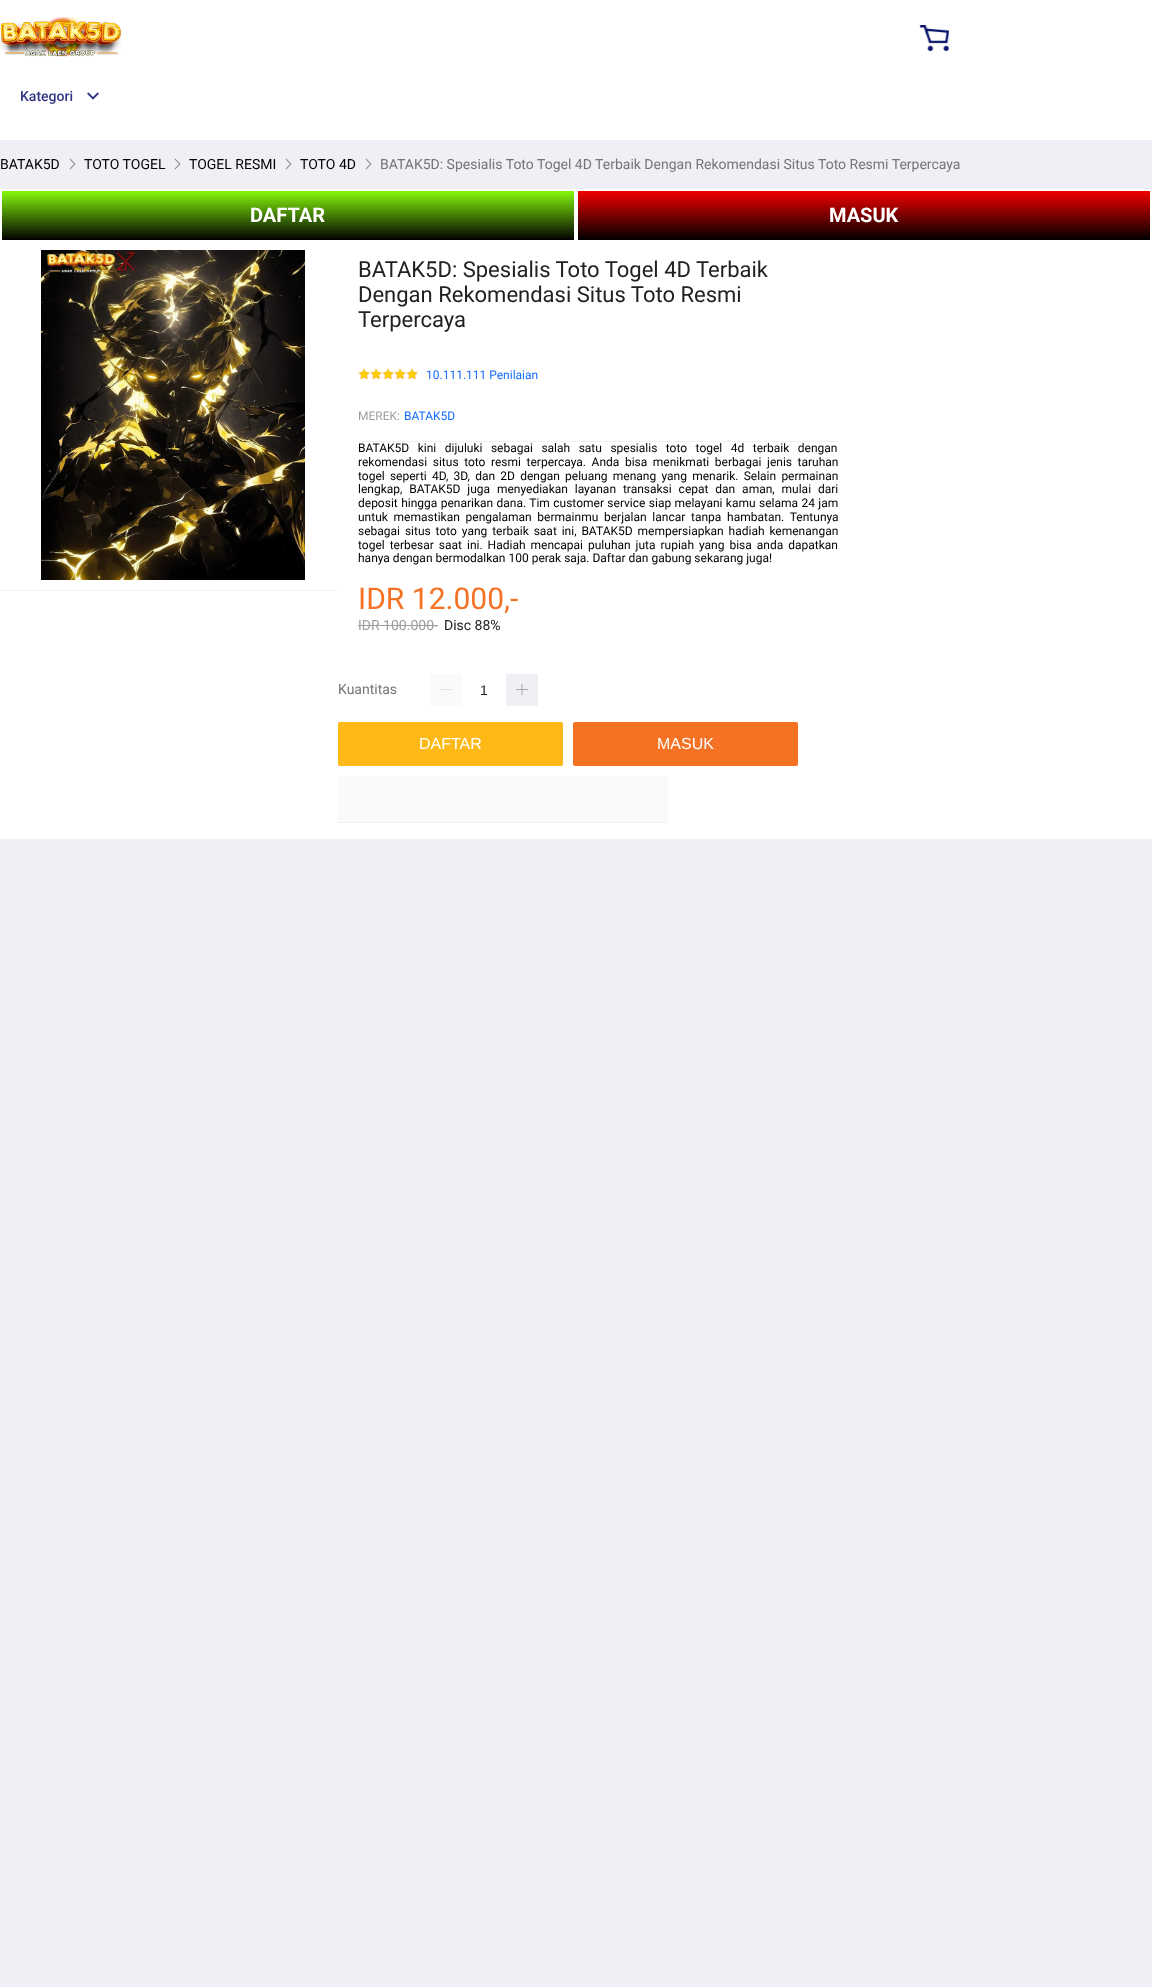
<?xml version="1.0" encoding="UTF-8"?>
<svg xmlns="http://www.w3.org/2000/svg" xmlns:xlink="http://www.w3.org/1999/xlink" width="1152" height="1987">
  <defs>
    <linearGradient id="g1" gradientUnits="userSpaceOnUse" x1="288" y1="240" x2="288" y2="191"><stop offset="0" stop-color="#000000" /><stop offset="1" stop-color="#86f70b" /></linearGradient>
    <linearGradient id="g2" gradientUnits="userSpaceOnUse" x1="864" y1="240" x2="864" y2="191"><stop offset="0" stop-color="#000000" /><stop offset="1" stop-color="#f10000" /></linearGradient>
  </defs>
  <rect width="100%" height="100%" fill="#eff0f5" />
  <rect width="1152" height="140" fill="#ffffff" />
  <image x="0" y="17" width="122" height="40" xlink:href="image1.png" />
  <image x="919" y="25" width="30" height="26" xlink:href="image2.png" />
  <image x="87" y="92" width="12" height="8" xlink:href="image3.png" />
  <image x="69" y="158" width="7" height="12" xlink:href="image4.png" />
  <image x="174" y="158" width="7" height="12" xlink:href="image4.png" />
  <image x="285" y="158" width="7" height="12" xlink:href="image4.png" />
  <image x="365" y="158" width="7" height="12" xlink:href="image4.png" />
  <rect x="2" y="191" width="572" height="49" fill="url(#g1)" />
  <rect x="1" y="190" width="574" height="51" fill="none" stroke="#ffffff" stroke-width="2" />
  <rect x="578" y="191" width="572" height="49" fill="url(#g2)" />
  <rect x="577" y="190" width="574" height="51" fill="none" stroke="#ffffff" stroke-width="2" />
  <rect y="242" width="1152" height="597" fill="#ffffff" />
  <rect y="590" width="338" height="1" fill="#eff0f5" />
  <image x="41" y="250" width="264" height="330" xlink:href="image5.png" />
  <image x="358" y="368" width="12" height="12" xlink:href="image6.png" />
  <image x="370" y="368" width="12" height="12" xlink:href="image6.png" />
  <image x="382" y="368" width="12" height="12" xlink:href="image6.png" />
  <image x="394" y="368" width="12" height="12" xlink:href="image6.png" />
  <image x="406" y="368" width="12" height="12" xlink:href="image6.png" />
  <rect x="358" y="441" width="480" height="1" fill="#eff0f5" />
  <rect x="358" y="625" width="80" height="1" fill="#9e9e9e" />
  <rect x="430" y="674" width="32" height="32" fill="#fafafa" />
  <image x="440" y="689" width="12" height="1" xlink:href="image7.png" />
  <rect x="506" y="674" width="32" height="32" fill="#eff0f5" />
  <image x="516" y="683" width="12" height="13" xlink:href="image8.png" />
  <rect x="338" y="722" width="225" height="44" rx="2" fill="#ffb916" />
  <rect x="573" y="722" width="225" height="44" rx="2" fill="#f57224" />
  <rect x="338" y="776" width="330" height="46" fill="#fafafa" />
  <rect x="338" y="822" width="330" height="1" fill="#eff0f5" />
  <text x="20" y="101" style="font-family: Roboto; font-size: 14px; font-weight: 500; fill: #333683">Kategori</text>
  <text x="0" y="169" style="font-family: Roboto; font-size: 14px; fill: #000000">BATAK5D</text>
  <text x="84" y="169" style="font-family: Roboto; font-size: 14px; fill: #000000">TOTO TOGEL</text>
  <text x="189" y="169" style="font-family: Roboto; font-size: 14px; fill: #000000">TOGEL RESMI</text>
  <text x="300" y="169" style="font-family: Roboto; font-size: 14px; fill: #000000">TOTO 4D</text>
  <text x="380" y="169" style="font-family: Roboto; font-size: 14px; fill: #757575">BATAK5D: Spesialis Toto Togel 4D Terbaik Dengan Rekomendasi Situs Toto Resmi Terpercaya</text>
  <text x="250" y="222" style="font-family: Roboto; font-size: 20px; font-weight: bold; fill: #ffffff">DAFTAR</text>
  <text x="829" y="222" style="font-family: Roboto; font-size: 20px; font-weight: bold; fill: #ffffff">MASUK</text>
  <text x="358" y="277" style="font-family: Roboto; font-size: 22px; fill: #212121">BATAK5D: Spesialis Toto Togel 4D Terbaik</text>
  <text x="358" y="302" style="font-family: Roboto; font-size: 22px; fill: #212121">Dengan Rekomendasi Situs Toto Resmi</text>
  <text x="358" y="327" style="font-family: Roboto; font-size: 22px; fill: #212121">Terpercaya</text>
  <text x="426" y="379" style="font-family: Roboto; font-size: 12px; fill: #136cff">10.111.111 Penilaian</text>
  <text x="358" y="420" style="font-family: Roboto; font-size: 12px; fill: #9e9e9e">MEREK:</text>
  <text x="404" y="420" style="font-family: Roboto; font-size: 12px; fill: #136cff">BATAK5D</text>
  <text x="358" y="452" word-spacing="5.5" style="font-family: Roboto; font-size: 12px; fill: #000000">BATAK5D kini dijuluki sebagai salah satu spesialis toto togel 4d terbaik dengan</text>
  <text x="358" y="466" word-spacing="2.6" style="font-family: Roboto; font-size: 12px; fill: #000000">rekomendasi situs toto resmi terpercaya. Anda bisa menikmati berbagai jenis taruhan</text>
  <text x="358" y="480" word-spacing="2.25" style="font-family: Roboto; font-size: 12px; fill: #000000">togel seperti 4D, 3D, dan 2D dengan peluang menang yang menarik. Selain permainan</text>
  <text x="358" y="493" word-spacing="3.9" style="font-family: Roboto; font-size: 12px; fill: #000000">lengkap, BATAK5D juga menyediakan layanan transaksi cepat dan aman, mulai dari</text>
  <text x="358" y="507" word-spacing="0.4" style="font-family: Roboto; font-size: 12px; fill: #000000">deposit hingga penarikan dana. Tim customer service siap melayani kamu selama 24 jam</text>
  <text x="358" y="521" word-spacing="2.75" style="font-family: Roboto; font-size: 12px; fill: #000000">untuk memastikan pengalaman bermainmu berjalan lancar tanpa hambatan. Tentunya</text>
  <text x="358" y="535" word-spacing="1.9" style="font-family: Roboto; font-size: 12px; fill: #000000">sebagai situs toto yang terbaik saat ini, BATAK5D mempersiapkan hadiah kemenangan</text>
  <text x="358" y="549" word-spacing="2" style="font-family: Roboto; font-size: 12px; fill: #000000">togel terbesar saat ini. Hadiah mencapai puluhan juta rupiah yang bisa anda dapatkan</text>
  <text x="358" y="562" style="font-family: Roboto; font-size: 12px; fill: #000000">hanya dengan bermodalkan 100 perak saja. Daftar dan gabung sekarang juga!</text>
  <text x="358" y="609" style="font-family: Roboto; font-size: 30px; fill: #f57224">IDR 12.000,-</text>
  <text x="358" y="630" style="font-family: Roboto; font-size: 14px; fill: #9e9e9e">IDR 100.000-</text>
  <text x="444" y="630" style="font-family: Roboto; font-size: 14px; fill: #212121">Disc 88%</text>
  <text x="338" y="694" style="font-family: Roboto; font-size: 14px; fill: #757575">Kuantitas</text>
  <text x="480" y="695" style="font-family: Liberation Sans; font-size: 14px; fill: #212121">1</text>
  <text x="419" y="749" style="font-family: Liberation Sans; font-size: 16px; fill: #ffffff">DAFTAR</text>
  <text x="657" y="749" style="font-family: Liberation Sans; font-size: 16px; fill: #ffffff">MASUK</text>
</svg>
